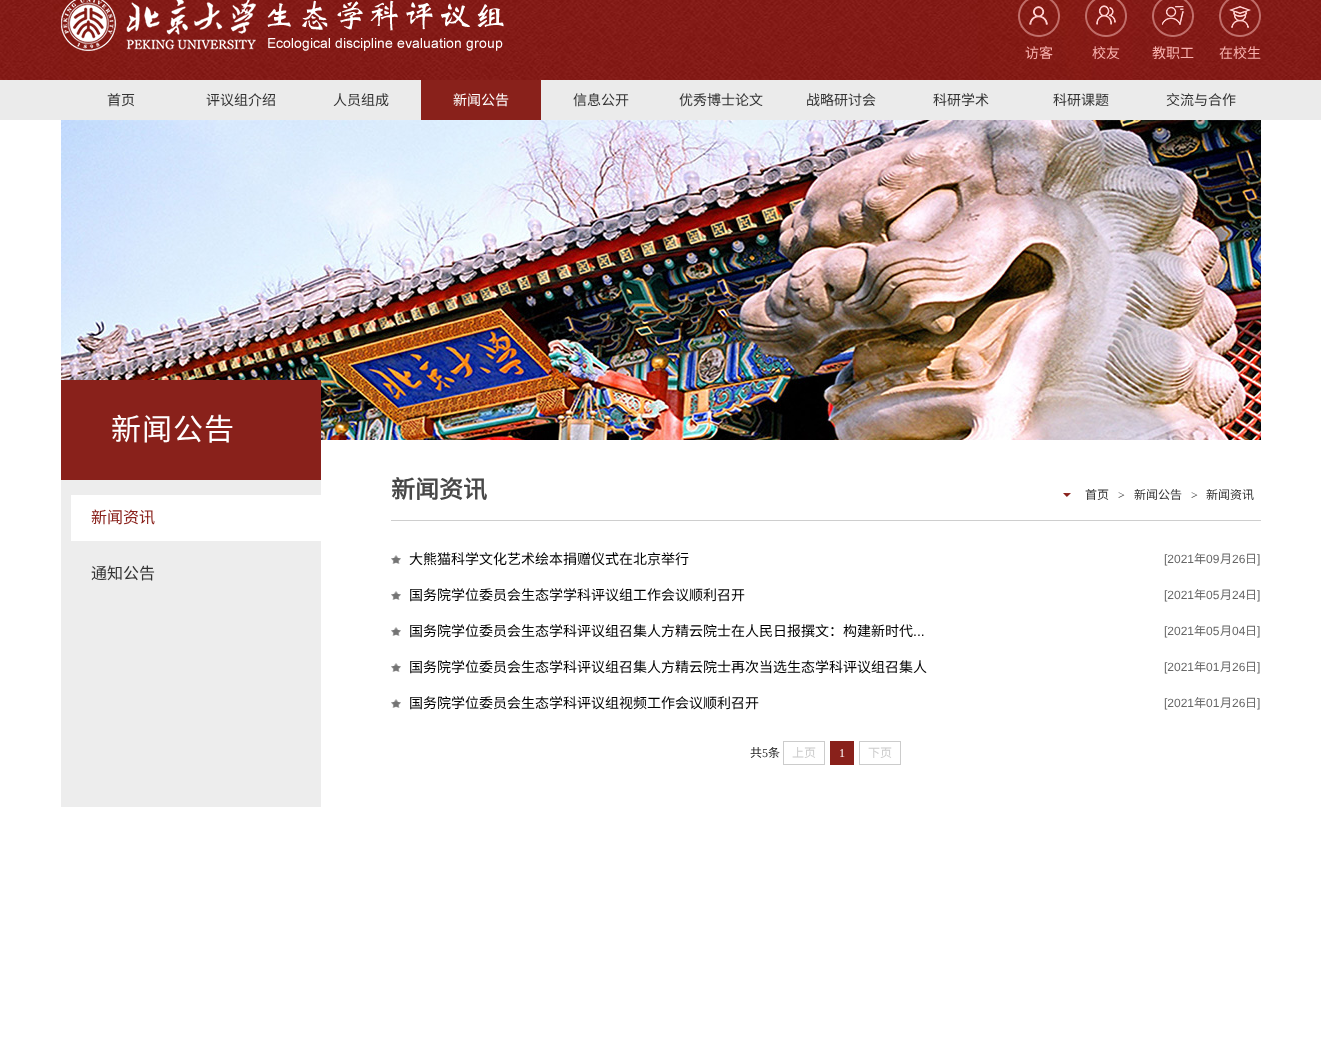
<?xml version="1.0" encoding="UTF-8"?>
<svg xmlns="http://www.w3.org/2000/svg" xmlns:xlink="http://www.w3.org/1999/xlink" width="1321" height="1058">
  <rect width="100%" height="100%" fill="#ffffff" />
  <image x="0" y="0" width="1321" height="80" xlink:href="image1.png" />
  <image x="61" y="0" width="195" height="51" xlink:href="image2.png" />
  <image x="267" y="0" width="237" height="51" xlink:href="image3.png" />
  <image x="1018" y="0" width="42" height="37" xlink:href="image4.png" />
  <image x="1085" y="0" width="42" height="37" xlink:href="image5.png" />
  <image x="1152" y="0" width="42" height="37" xlink:href="image6.png" />
  <image x="1219" y="0" width="42" height="37" xlink:href="image7.png" />
  <rect y="80" width="1321" height="40" fill="#ebebeb" />
  <rect x="421" y="80" width="120" height="40" fill="#89211b" />
  <image x="61" y="120" width="1200" height="320" xlink:href="image8.png" />
  <rect x="61" y="380" width="260" height="100" fill="#89211b" />
  <rect x="61" y="480" width="260" height="327" fill="#ededed" />
  <rect x="71" y="495" width="250" height="46" fill="#ffffff" />
  <rect x="391" y="520" width="870" height="1" fill="#cecece" />
  <image x="1063" y="493" width="8" height="4" xlink:href="image9.png" />
  <image x="391" y="555" width="10" height="9" xlink:href="image10.png" />
  <image x="391" y="591" width="10" height="9" xlink:href="image10.png" />
  <image x="391" y="627" width="10" height="9" xlink:href="image10.png" />
  <image x="391" y="663" width="10" height="9" xlink:href="image10.png" />
  <image x="391" y="699" width="10" height="9" xlink:href="image10.png" />
  <rect x="783.5" y="741.5" width="41" height="23" fill="none" stroke="#cccccc" />
  <rect x="830" y="741" width="24" height="24" fill="#89211b" />
  <rect x="859.5" y="741.5" width="41" height="23" fill="none" stroke="#cccccc" />
  <text x="1025" y="58" style="font-family: Noto Sans CJK SC; font-size: 14px; fill: #f8b2ae">访客</text>
  <text x="1092" y="58" style="font-family: Noto Sans CJK SC; font-size: 14px; fill: #f8b2ae">校友</text>
  <text x="1152" y="58" style="font-family: Noto Sans CJK SC; font-size: 14px; fill: #f8b2ae">教职工</text>
  <text x="1219" y="58" style="font-family: Noto Sans CJK SC; font-size: 14px; fill: #f8b2ae">在校生</text>
  <text x="107" y="105" style="font-family: Noto Sans CJK SC; font-size: 14px; fill: #333333">首页</text>
  <text x="206" y="105" style="font-family: Noto Sans CJK SC; font-size: 14px; fill: #333333">评议组介绍</text>
  <text x="333" y="105" style="font-family: Noto Sans CJK SC; font-size: 14px; fill: #333333">人员组成</text>
  <text x="453" y="105" style="font-family: Noto Sans CJK SC; font-size: 14px; fill: #ffffff">新闻公告</text>
  <text x="573" y="105" style="font-family: Noto Sans CJK SC; font-size: 14px; fill: #333333">信息公开</text>
  <text x="679" y="105" style="font-family: Noto Sans CJK SC; font-size: 14px; fill: #333333">优秀博士论文</text>
  <text x="806" y="105" style="font-family: Noto Sans CJK SC; font-size: 14px; fill: #333333">战略研讨会</text>
  <text x="933" y="105" style="font-family: Noto Sans CJK SC; font-size: 14px; fill: #333333">科研学术</text>
  <text x="1053" y="105" style="font-family: Noto Sans CJK SC; font-size: 14px; fill: #333333">科研课题</text>
  <text x="1166" y="105" style="font-family: Noto Sans CJK SC; font-size: 14px; fill: #333333">交流与合作</text>
  <text x="111" y="440" style="font-family: Noto Sans CJK SC; font-size: 30px; letter-spacing: 1px; fill: #ffffff">新闻公告</text>
  <text x="91" y="523" style="font-family: Noto Sans CJK SC; font-size: 16px; fill: #89211b">新闻资讯</text>
  <text x="91" y="579" style="font-family: Noto Sans CJK SC; font-size: 16px; fill: #333333">通知公告</text>
  <text x="391" y="498" style="font-family: Noto Sans CJK SC; font-size: 24px; font-weight: bold; fill: #484848">新闻资讯</text>
  <text x="1085" y="499" style="font-family: Noto Sans CJK SC; font-size: 12px; fill: #333333">首页</text>
  <text x="1118" y="499" style="font-family: Liberation Serif; font-size: 12px; fill: #333333">&gt;</text>
  <text x="1134" y="499" style="font-family: Noto Sans CJK SC; font-size: 12px; fill: #333333">新闻公告</text>
  <text x="1191" y="499" style="font-family: Liberation Serif; font-size: 12px; fill: #333333">&gt;</text>
  <text x="1206" y="499" style="font-family: Noto Sans CJK SC; font-size: 12px; fill: #333333">新闻资讯</text>
  <text x="409" y="564" style="font-family: Noto Sans CJK SC; font-size: 14px; fill: #000000">大熊猫科学文化艺术绘本捐赠仪式在北京举行</text>
  <text x="1164" y="563" style="font-family: Liberation Sans; font-size: 12px; fill: #666666">[2021</text>
  <text x="1194" y="563" style="font-family: Noto Sans CJK SC; font-size: 12px; fill: #666666">年</text>
  <text x="1206" y="563" style="font-family: Liberation Sans; font-size: 12px; fill: #666666">09</text>
  <text x="1220" y="563" style="font-family: Noto Sans CJK SC; font-size: 12px; fill: #666666">月</text>
  <text x="1232" y="563" style="font-family: Liberation Sans; font-size: 12px; fill: #666666">26</text>
  <text x="1245" y="563" style="font-family: Noto Sans CJK SC; font-size: 12px; fill: #666666">日</text>
  <text x="1257" y="563" style="font-family: Liberation Sans; font-size: 12px; fill: #666666">]</text>
  <text x="409" y="600" style="font-family: Noto Sans CJK SC; font-size: 14px; fill: #000000">国务院学位委员会生态学学科评议组工作会议顺利召开</text>
  <text x="1164" y="599" style="font-family: Liberation Sans; font-size: 12px; fill: #666666">[2021</text>
  <text x="1194" y="599" style="font-family: Noto Sans CJK SC; font-size: 12px; fill: #666666">年</text>
  <text x="1206" y="599" style="font-family: Liberation Sans; font-size: 12px; fill: #666666">05</text>
  <text x="1220" y="599" style="font-family: Noto Sans CJK SC; font-size: 12px; fill: #666666">月</text>
  <text x="1232" y="599" style="font-family: Liberation Sans; font-size: 12px; fill: #666666">24</text>
  <text x="1245" y="599" style="font-family: Noto Sans CJK SC; font-size: 12px; fill: #666666">日</text>
  <text x="1257" y="599" style="font-family: Liberation Sans; font-size: 12px; fill: #666666">]</text>
  <text x="409" y="636" style="font-family: Noto Sans CJK SC; font-size: 14px; fill: #000000">国务院学位委员会生态学科评议组召集人方精云院士在人民日报撰文：构建新时代</text>
  <text x="913" y="636" style="font-family: Liberation Sans; font-size: 14px; fill: #000000">...</text>
  <text x="1164" y="635" style="font-family: Liberation Sans; font-size: 12px; fill: #666666">[2021</text>
  <text x="1194" y="635" style="font-family: Noto Sans CJK SC; font-size: 12px; fill: #666666">年</text>
  <text x="1206" y="635" style="font-family: Liberation Sans; font-size: 12px; fill: #666666">05</text>
  <text x="1220" y="635" style="font-family: Noto Sans CJK SC; font-size: 12px; fill: #666666">月</text>
  <text x="1232" y="635" style="font-family: Liberation Sans; font-size: 12px; fill: #666666">04</text>
  <text x="1245" y="635" style="font-family: Noto Sans CJK SC; font-size: 12px; fill: #666666">日</text>
  <text x="1257" y="635" style="font-family: Liberation Sans; font-size: 12px; fill: #666666">]</text>
  <text x="409" y="672" style="font-family: Noto Sans CJK SC; font-size: 14px; fill: #000000">国务院学位委员会生态学科评议组召集人方精云院士再次当选生态学科评议组召集人</text>
  <text x="1164" y="671" style="font-family: Liberation Sans; font-size: 12px; fill: #666666">[2021</text>
  <text x="1194" y="671" style="font-family: Noto Sans CJK SC; font-size: 12px; fill: #666666">年</text>
  <text x="1206" y="671" style="font-family: Liberation Sans; font-size: 12px; fill: #666666">01</text>
  <text x="1220" y="671" style="font-family: Noto Sans CJK SC; font-size: 12px; fill: #666666">月</text>
  <text x="1232" y="671" style="font-family: Liberation Sans; font-size: 12px; fill: #666666">26</text>
  <text x="1245" y="671" style="font-family: Noto Sans CJK SC; font-size: 12px; fill: #666666">日</text>
  <text x="1257" y="671" style="font-family: Liberation Sans; font-size: 12px; fill: #666666">]</text>
  <text x="409" y="708" style="font-family: Noto Sans CJK SC; font-size: 14px; fill: #000000">国务院学位委员会生态学科评议组视频工作会议顺利召开</text>
  <text x="1164" y="707" style="font-family: Liberation Sans; font-size: 12px; fill: #666666">[2021</text>
  <text x="1194" y="707" style="font-family: Noto Sans CJK SC; font-size: 12px; fill: #666666">年</text>
  <text x="1206" y="707" style="font-family: Liberation Sans; font-size: 12px; fill: #666666">01</text>
  <text x="1220" y="707" style="font-family: Noto Sans CJK SC; font-size: 12px; fill: #666666">月</text>
  <text x="1232" y="707" style="font-family: Liberation Sans; font-size: 12px; fill: #666666">26</text>
  <text x="1245" y="707" style="font-family: Noto Sans CJK SC; font-size: 12px; fill: #666666">日</text>
  <text x="1257" y="707" style="font-family: Liberation Sans; font-size: 12px; fill: #666666">]</text>
  <text x="750" y="757" style="font-family: Noto Sans CJK SC; font-size: 12px; fill: #222222">共</text>
  <text x="762" y="757" style="font-family: Liberation Serif; font-size: 12px; fill: #222222">5</text>
  <text x="768" y="757" style="font-family: Noto Sans CJK SC; font-size: 12px; fill: #222222">条</text>
  <text x="792" y="757" style="font-family: Noto Sans CJK SC; font-size: 12px; fill: #cccccc">上页</text>
  <text x="839" y="757" style="font-family: Liberation Serif; font-size: 12px; fill: #ffffff">1</text>
  <text x="868" y="757" style="font-family: Noto Sans CJK SC; font-size: 12px; fill: #cccccc">下页</text>
</svg>
